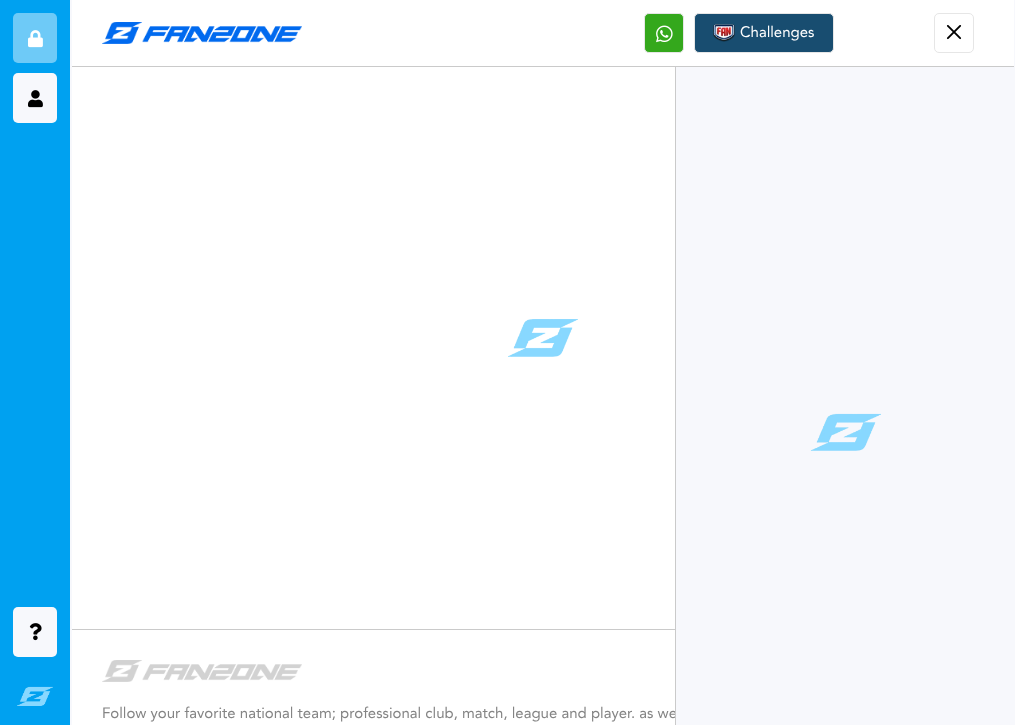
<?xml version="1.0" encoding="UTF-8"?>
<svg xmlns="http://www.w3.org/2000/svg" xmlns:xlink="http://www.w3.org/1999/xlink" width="1015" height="725">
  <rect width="100%" height="100%" fill="#ffffff" />
  <rect x="70" width="2" height="725" fill="#f7f8fc" />
  <rect width="70" height="725" fill="#00a1f0" />
  <rect x="13" y="13" width="44" height="50" rx="5" fill="#6ecaf7" />
  <image x="28" y="30" width="15" height="18" xlink:href="image1.png" />
  <rect x="13" y="73" width="44" height="50" rx="5" fill="#f7f8fc" />
  <image x="28" y="90" width="15" height="18" xlink:href="image2.png" />
  <rect x="13" y="607" width="44" height="50" rx="5" fill="#f7f8fc" />
  <image x="29" y="623" width="13" height="18" xlink:href="image3.png" />
  <image x="17" y="686" width="36" height="20" xlink:href="image4.png" />
  <image x="508" y="319" width="70" height="38" xlink:href="image5.png" />
  <image x="102" y="22" width="200" height="22" xlink:href="image7.png" />
  <rect x="72" y="629" width="603" height="1" fill="#cacaca" />
  <image x="102" y="660" width="200" height="22" xlink:href="image11.png" />
  <text x="102" y="718" style="font-family: Avenir; font-size: 15px; fill: #848484">Follow your favorite national team; professional club, match, league and player. as we</text>
  <rect x="676" width="339" height="725" fill="#f7f8fc" />
  <rect x="676" width="338" height="66" fill="#ffffff" />
  <rect x="934.5" y="13.5" width="39" height="39" rx="4.5" fill="none" stroke="#e6e6e6" />
  <image x="946" y="25" width="16" height="15" xlink:href="image10.png" />
  <rect x="694.5" y="13.5" width="139" height="39" rx="4.5" fill="#184d70" stroke="#e6e6e6" />
  <image x="713" y="24" width="22" height="18" xlink:href="image9.png" />
  <text x="740" y="37" style="font-family: Avenir; font-size: 15px; fill: #ffffff">Challenges</text>
  <rect x="644.5" y="13.5" width="39" height="39" rx="4.5" fill="#34a81c" stroke="#e6e6e6" />
  <image x="656" y="25" width="17" height="18" xlink:href="image8.png" />
  <rect x="72" y="66" width="942" height="1" fill="#cacaca" />
  <image x="810" y="413" width="71" height="38" xlink:href="image6.png" />
  <rect x="675" y="67" width="1" height="658" fill="#cacaca" />
</svg>
